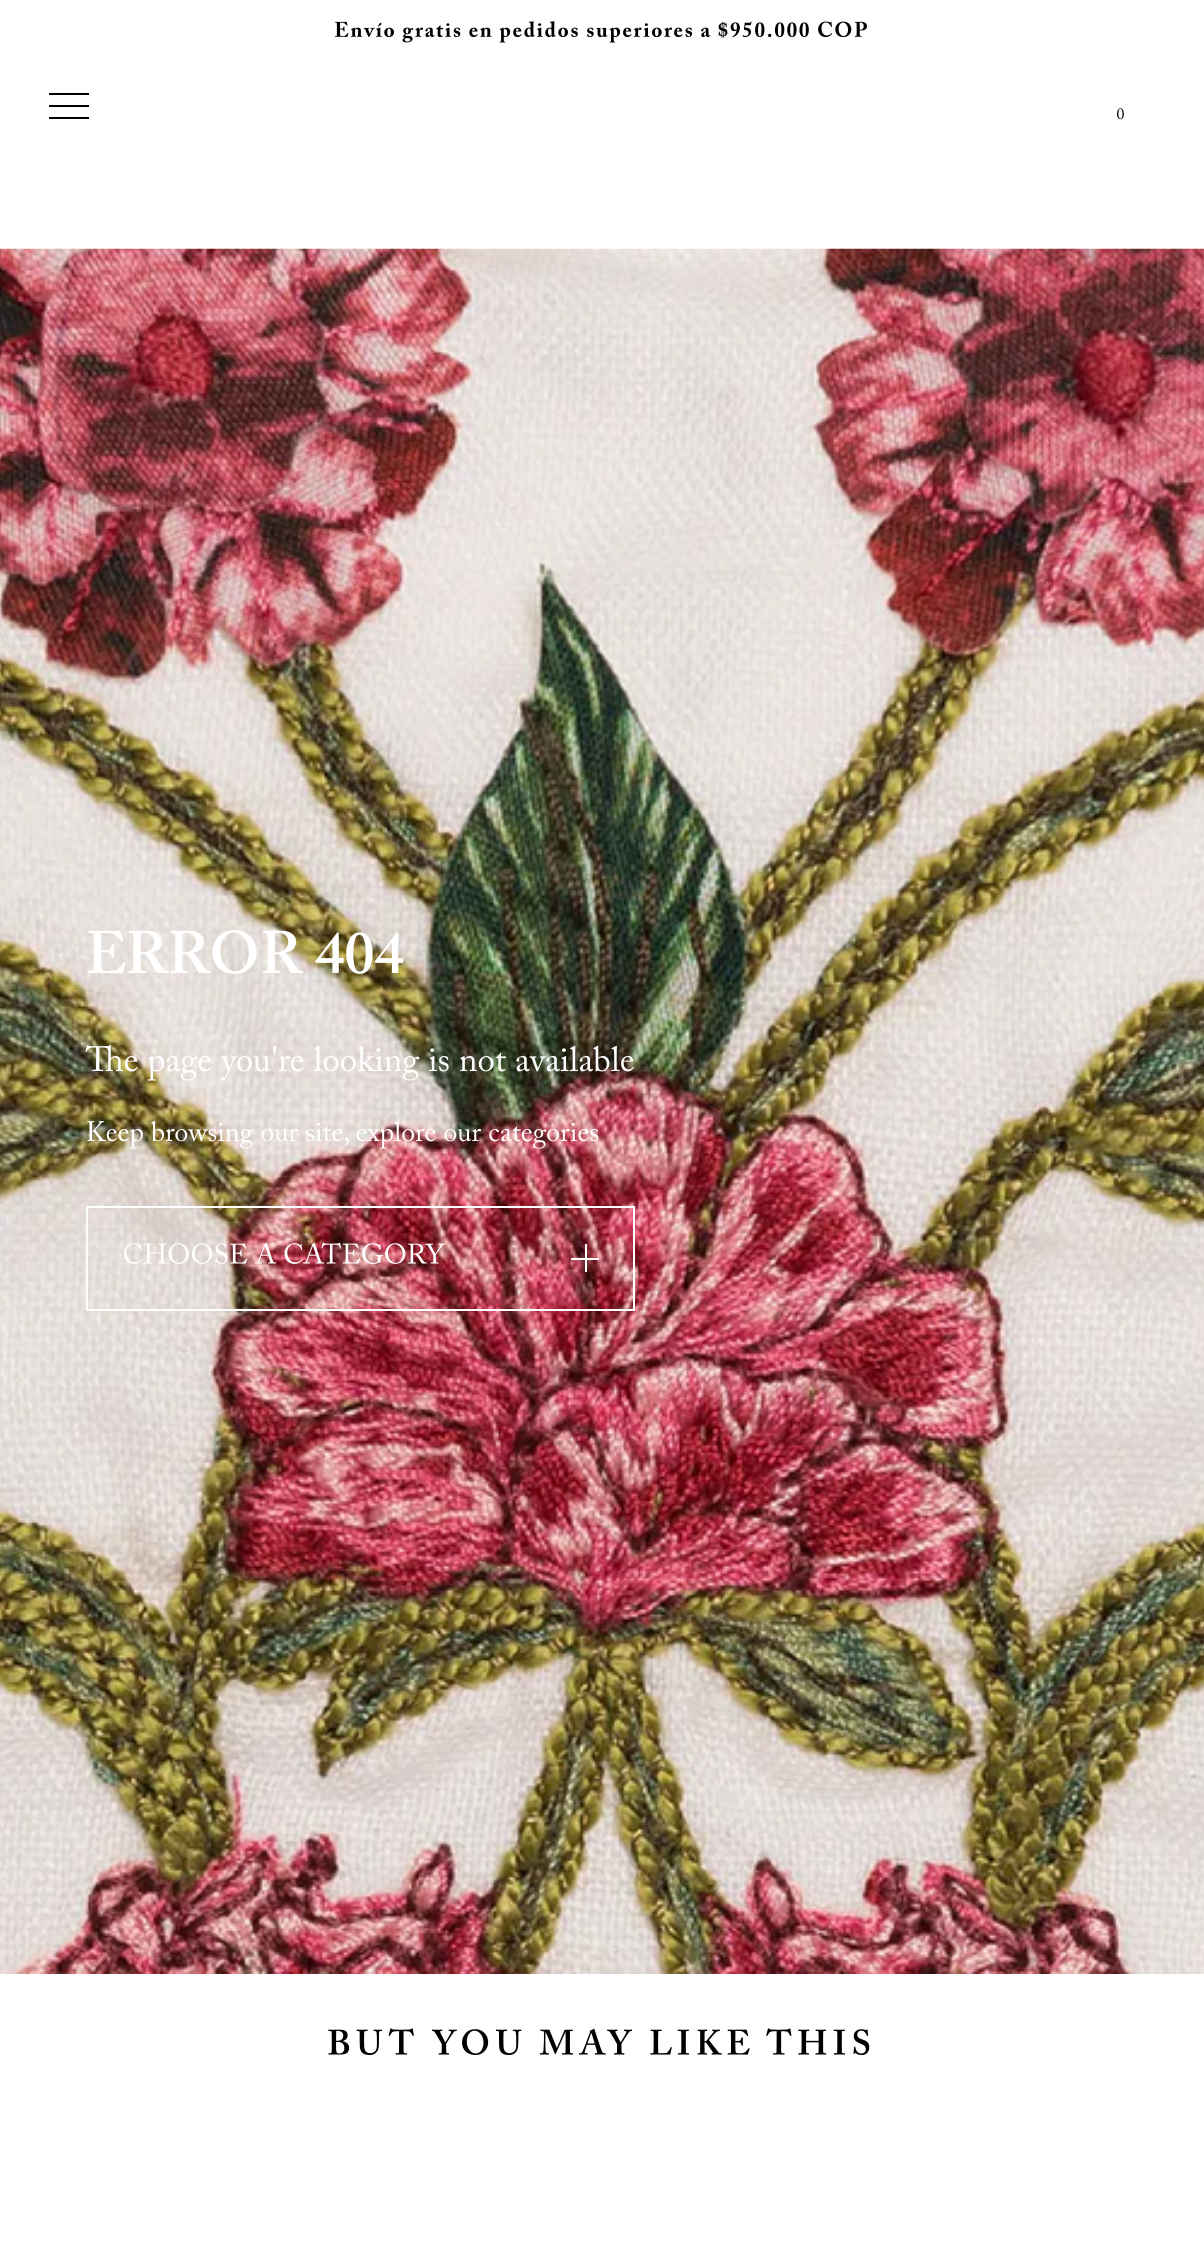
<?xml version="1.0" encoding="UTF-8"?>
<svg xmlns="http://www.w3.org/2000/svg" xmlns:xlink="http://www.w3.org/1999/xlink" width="1204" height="2259">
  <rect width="100%" height="100%" fill="#ffffff" />
  <image x="335" y="21" width="532" height="22" xlink:href="image1.png" />
  <rect x="49" y="93" width="40" height="2" fill="#000000" />
  <rect x="49" y="105" width="40" height="2" fill="#000000" />
  <rect x="49" y="117" width="40" height="2" fill="#000000" />
  <image x="1117" y="108" width="7" height="12" xlink:href="image2.png" />
  <image x="0" y="248" width="1204" height="1726" xlink:href="image3.png" />
  <image x="88" y="930" width="316" height="44" xlink:href="image4.png" />
  <image x="85" y="1045" width="549" height="36" xlink:href="image5.png" />
  <image x="87" y="1120" width="512" height="29" xlink:href="image6.png" />
  <rect x="87" y="1207" width="547" height="103" fill="none" stroke="#ffffff" stroke-width="2" />
  <image x="123" y="1242" width="322" height="22" xlink:href="image7.png" />
  <rect x="585" y="1244" width="2" height="28" fill="#ffffff" />
  <rect x="571" y="1258" width="28" height="2" fill="#ffffff" />
  <image x="328" y="2028" width="542" height="27" xlink:href="image8.png" />
</svg>
